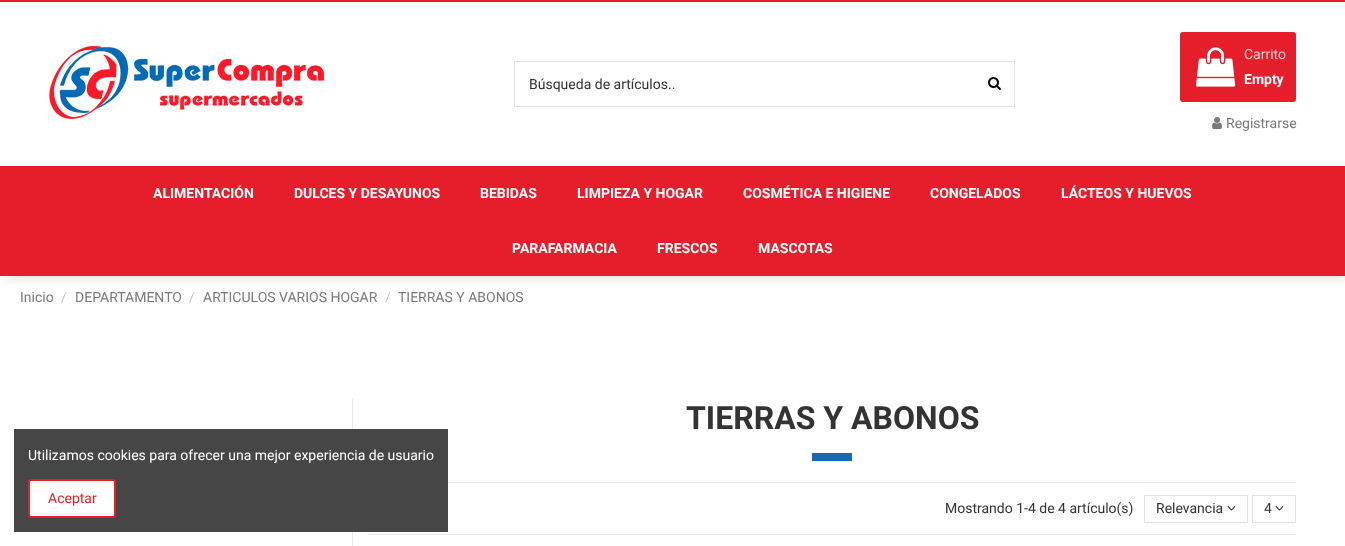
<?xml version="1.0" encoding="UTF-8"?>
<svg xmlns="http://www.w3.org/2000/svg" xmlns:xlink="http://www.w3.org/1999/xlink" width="1345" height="546">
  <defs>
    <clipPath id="clip1"><rect x="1" y="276" width="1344" height="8" /></clipPath>
  </defs>
  <rect width="100%" height="100%" fill="#ffffff" />
  <g clip-path="url(#clip1)">
    <rect x="5" width="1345" height="276" fill="#000000" fill-opacity="0.15" filter="blur(7.5px)" />
  </g>
  <rect width="1345" height="2" fill="#e61e2b" />
  <image x="49" y="46" width="275" height="73" xlink:href="image1.png" />
  <rect x="514.5" y="61.5" width="500" height="45" fill="none" stroke="#e3e3e3" />
  <image x="988" y="77" width="13" height="13" xlink:href="image2.png" />
  <rect x="1180" y="32" width="116" height="70" rx="3" fill="#e61e2b" />
  <image x="1196" y="47" width="40" height="40" xlink:href="image3.png" />
  <image x="1212" y="117" width="10" height="12" xlink:href="image4.png" />
  <rect y="166" width="1345" height="110" fill="#e61e2b" />
  <rect x="352" y="399" width="1" height="147" fill="#e8e8e8" />
  <rect x="812" y="453" width="40" height="8" fill="#176ab2" />
  <rect x="448" y="482" width="848" height="1" fill="#e7e7e7" />
  <rect x="368" y="534" width="928" height="1" fill="#e7e7e7" />
  <rect x="1144.5" y="495.5" width="103" height="27" fill="none" stroke="#e3e3e3" />
  <image x="1227" y="506" width="9" height="5" xlink:href="image5.png" />
  <rect x="1252.5" y="495.5" width="43" height="27" fill="none" stroke="#e3e3e3" />
  <image x="1275" y="506" width="9" height="5" xlink:href="image5.png" />
  <rect x="14" y="429" width="434" height="103" fill="#464646" />
  <rect x="29" y="480" width="86" height="37" rx="2" fill="#ffffff" stroke="#e61e2b" stroke-width="2" />
  <text x="529" y="89" style="font-family: Roboto; font-size: 14px; fill: #333333">Búsqueda de artículos..</text>
  <text x="1244" y="59" style="font-family: Roboto; font-size: 14px; fill: #fad2d5">Carrito</text>
  <text x="1244" y="84" style="font-family: Roboto; font-size: 14px; font-weight: bold; fill: #ffffff">Empty</text>
  <text x="1226" y="128" style="font-family: Roboto; font-size: 14px; fill: #7a7a7a">Registrarse</text>
  <text x="153" y="198" style="font-family: Roboto; font-size: 14px; font-weight: bold; fill: #ffffff">ALIMENTACIÓN</text>
  <text x="294" y="198" style="font-family: Roboto; font-size: 14px; font-weight: bold; fill: #ffffff">DULCES Y DESAYUNOS</text>
  <text x="480" y="198" style="font-family: Roboto; font-size: 14px; font-weight: bold; fill: #ffffff">BEBIDAS</text>
  <text x="577" y="198" style="font-family: Roboto; font-size: 14px; font-weight: bold; fill: #ffffff">LIMPIEZA Y HOGAR</text>
  <text x="743" y="198" style="font-family: Roboto; font-size: 14px; font-weight: bold; fill: #ffffff">COSMÉTICA E HIGIENE</text>
  <text x="930" y="198" style="font-family: Roboto; font-size: 14px; font-weight: bold; fill: #ffffff">CONGELADOS</text>
  <text x="1061" y="198" style="font-family: Roboto; font-size: 14px; font-weight: bold; fill: #ffffff">LÁCTEOS Y HUEVOS</text>
  <text x="512" y="253" style="font-family: Roboto; font-size: 14px; font-weight: bold; fill: #ffffff">PARAFARMACIA</text>
  <text x="657" y="253" style="font-family: Roboto; font-size: 14px; font-weight: bold; fill: #ffffff">FRESCOS</text>
  <text x="758" y="253" style="font-family: Roboto; font-size: 14px; font-weight: bold; fill: #ffffff">MASCOTAS</text>
  <text x="20" y="302" style="font-family: Roboto; font-size: 14px; fill: #7a7a7a">Inicio</text>
  <text x="61" y="302" style="font-family: Roboto; font-size: 14px; fill: #cacaca">/</text>
  <text x="75" y="302" style="font-family: Roboto; font-size: 14px; fill: #7a7a7a">DEPARTAMENTO</text>
  <text x="189" y="302" style="font-family: Roboto; font-size: 14px; fill: #cacaca">/</text>
  <text x="203" y="302" style="font-family: Roboto; font-size: 14px; fill: #7a7a7a">ARTICULOS VARIOS HOGAR</text>
  <text x="385" y="302" style="font-family: Roboto; font-size: 14px; fill: #cacaca">/</text>
  <text x="398" y="302" style="font-family: Roboto; font-size: 14px; fill: #7a7a7a">TIERRAS Y ABONOS</text>
  <text x="686" y="429" style="font-family: Roboto; font-size: 32px; font-weight: bold; fill: #333333">TIERRAS Y ABONOS</text>
  <text x="945" y="513" style="font-family: Roboto; font-size: 14px; fill: #333333">Mostrando 1-4 de 4 artículo(s)</text>
  <text x="1156" y="513" style="font-family: Roboto; font-size: 14px; fill: #333333">Relevancia</text>
  <text x="1264" y="513" style="font-family: Roboto; font-size: 14px; fill: #333333">4</text>
  <text x="28" y="460" style="font-family: Roboto; font-size: 14px; fill: #ffffff">Utilizamos cookies para ofrecer una mejor experiencia de usuario</text>
  <text x="48" y="503" style="font-family: Roboto; font-size: 14px; fill: #e61e2b">Aceptar</text>
</svg>
